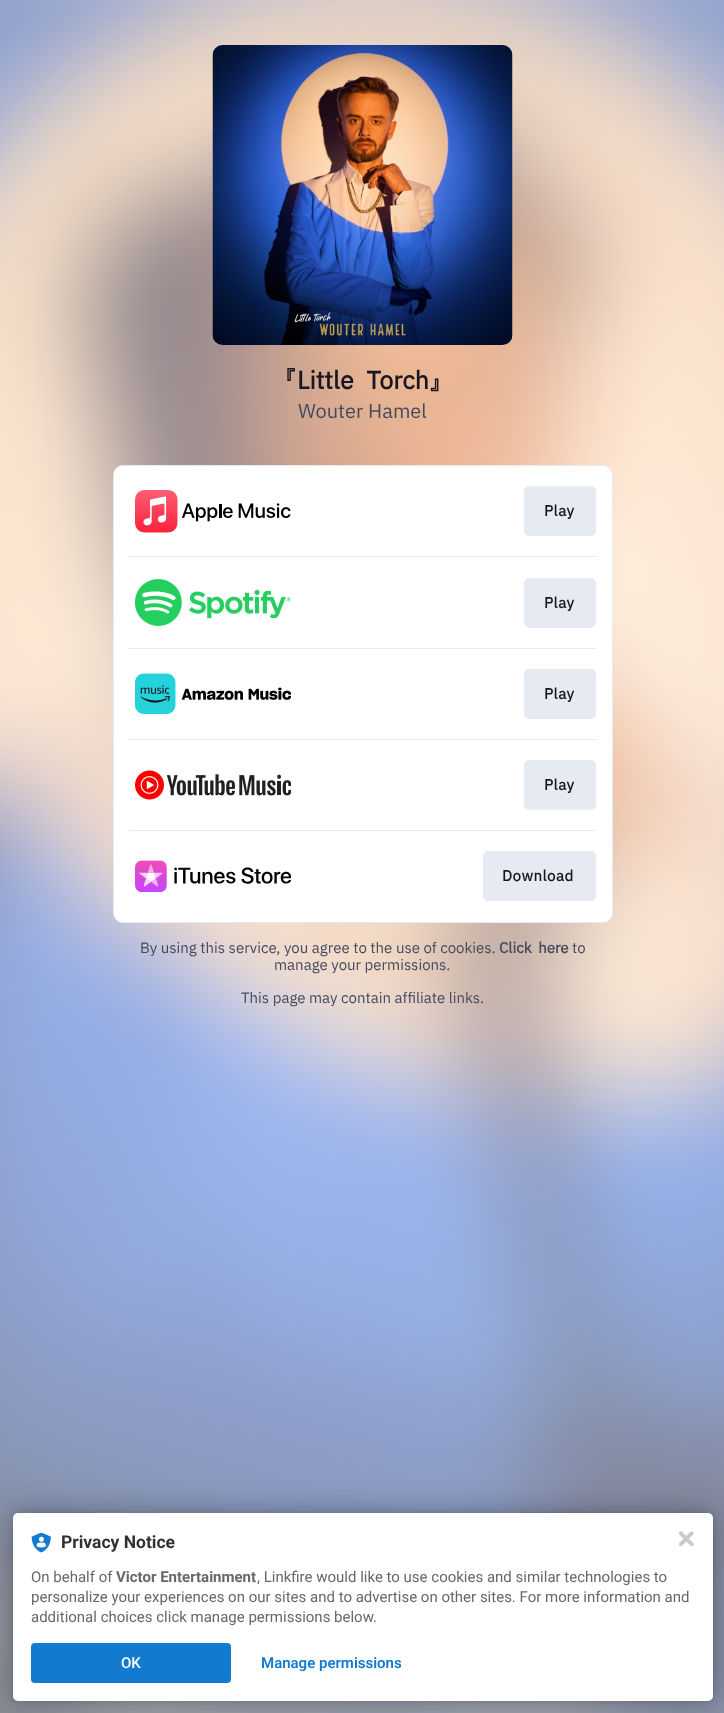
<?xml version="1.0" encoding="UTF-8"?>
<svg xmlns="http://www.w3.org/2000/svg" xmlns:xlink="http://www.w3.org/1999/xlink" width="724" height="1713">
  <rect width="100%" height="100%" fill="#ffffff" />
  <image x="0" y="0" width="724" height="1713" xlink:href="image1.png" />
  <image x="212" y="45" width="301" height="300" xlink:href="image2.png" />
  <rect x="113.5" y="465.5" width="499" height="457" rx="9.5" fill="#ffffff" stroke="#e6eaf2" />
  <rect x="114" y="466" width="497" height="455" rx="9" fill="#ffffff" />
  <image x="135" y="490" width="156" height="43" xlink:href="image3.png" />
  <rect x="524" y="486" width="72" height="50" rx="5" fill="#e6eaf2" />
  <rect x="129" y="556" width="467" height="1" fill="#e6eaf2" />
  <image x="135" y="579" width="156" height="47" xlink:href="image4.png" />
  <rect x="524" y="578" width="72" height="50" rx="5" fill="#e6eaf2" />
  <rect x="129" y="648" width="467" height="1" fill="#e6eaf2" />
  <image x="135" y="673" width="156" height="41" xlink:href="image5.png" />
  <rect x="524" y="669" width="72" height="50" rx="5" fill="#e6eaf2" />
  <rect x="129" y="739" width="467" height="1" fill="#e6eaf2" />
  <image x="135" y="770" width="156" height="30" xlink:href="image6.png" />
  <rect x="524" y="760" width="72" height="50" rx="5" fill="#e6eaf2" />
  <rect x="129" y="830" width="467" height="1" fill="#e6eaf2" />
  <image x="135" y="860" width="156" height="32" xlink:href="image7.png" />
  <rect x="483" y="851" width="113" height="50" rx="5" fill="#e6eaf2" />
  <rect x="13" y="1513" width="700" height="188" rx="5" fill="#000000" fill-opacity="0.12" filter="blur(2.5px)" />
  <rect x="13" y="1513" width="700" height="188" rx="5" fill="#000000" fill-opacity="0.3" filter="blur(15px)" />
  <rect x="13" y="1513" width="700" height="188" rx="5" fill="#ffffff" />
  <image x="679" y="1531" width="15" height="15" xlink:href="image8.png" />
  <image x="31" y="1533" width="20" height="20" xlink:href="image9.png" />
  <rect x="31" y="1643" width="200" height="40" rx="4" fill="#137bcf" />
  <text x="272" y="389" style="font-family: WenQuanYi Zen Hei; font-size: 25px; font-weight: bold; fill: #181721">『</text>
  <text x="297" y="389" word-spacing="7" style="font-family: IBM Plex Sans; font-size: 25px; font-weight: bold; fill: #181721">Little Torch</text>
  <text x="428" y="389" style="font-family: WenQuanYi Zen Hei; font-size: 25px; font-weight: bold; fill: #181721">』</text>
  <text x="298" y="418" style="font-family: IBM Plex Sans; font-size: 20px; fill: #454b5f">Wouter Hamel</text>
  <text x="544" y="516" style="font-family: IBM Plex Sans; font-size: 15px; font-weight: bold; letter-spacing: 0.5px; fill: #181721">Play</text>
  <text x="544" y="608" style="font-family: IBM Plex Sans; font-size: 15px; font-weight: bold; letter-spacing: 0.5px; fill: #181721">Play</text>
  <text x="544" y="699" style="font-family: IBM Plex Sans; font-size: 15px; font-weight: bold; letter-spacing: 0.5px; fill: #181721">Play</text>
  <text x="544" y="790" style="font-family: IBM Plex Sans; font-size: 15px; font-weight: bold; letter-spacing: 0.5px; fill: #181721">Play</text>
  <text x="502" y="881" style="font-family: IBM Plex Sans; font-size: 15px; font-weight: bold; letter-spacing: 0.5px; fill: #181721">Download</text>
  <text x="140" y="953" style="font-family: IBM Plex Sans; font-size: 15px; fill: #454b5f">By using this service, you agree to the use of cookies.</text>
  <text x="499" y="953" word-spacing="3" style="font-family: IBM Plex Sans; font-size: 15px; font-weight: bold; fill: #454b5f">Click here</text>
  <text x="572" y="953" style="font-family: IBM Plex Sans; font-size: 15px; fill: #454b5f">to</text>
  <text x="274" y="970" style="font-family: IBM Plex Sans; font-size: 15px; fill: #454b5f">manage your permissions.</text>
  <text x="241" y="1003" style="font-family: IBM Plex Sans; font-size: 15px; fill: #454b5f">This page may contain affiliate links.</text>
  <text x="61" y="1548" style="font-family: Roboto; font-size: 17.5px; font-weight: bold; fill: #323232">Privacy Notice</text>
  <text x="31" y="1582" style="font-family: Roboto; font-size: 15px; fill: #686868">On behalf of</text>
  <text x="116" y="1582" style="font-family: Roboto; font-size: 15px; font-weight: bold; fill: #686868">Victor Entertainment</text>
  <text x="257" y="1582" style="font-family: Roboto; font-size: 15px; fill: #686868">, Linkfire would like to use cookies and similar technologies to</text>
  <text x="31" y="1602" style="font-family: Roboto; font-size: 15px; fill: #686868">personalize your experiences on our sites and to advertise on other sites. For more information and</text>
  <text x="31" y="1622" style="font-family: Roboto; font-size: 15px; fill: #686868">additional choices click manage permissions below.</text>
  <text x="121" y="1668" style="font-family: Roboto; font-size: 15px; font-weight: 500; fill: #ffffff">OK</text>
  <text x="261" y="1668" style="font-family: Roboto; font-size: 15px; font-weight: 600; fill: #137bcf">Manage permissions</text>
</svg>
